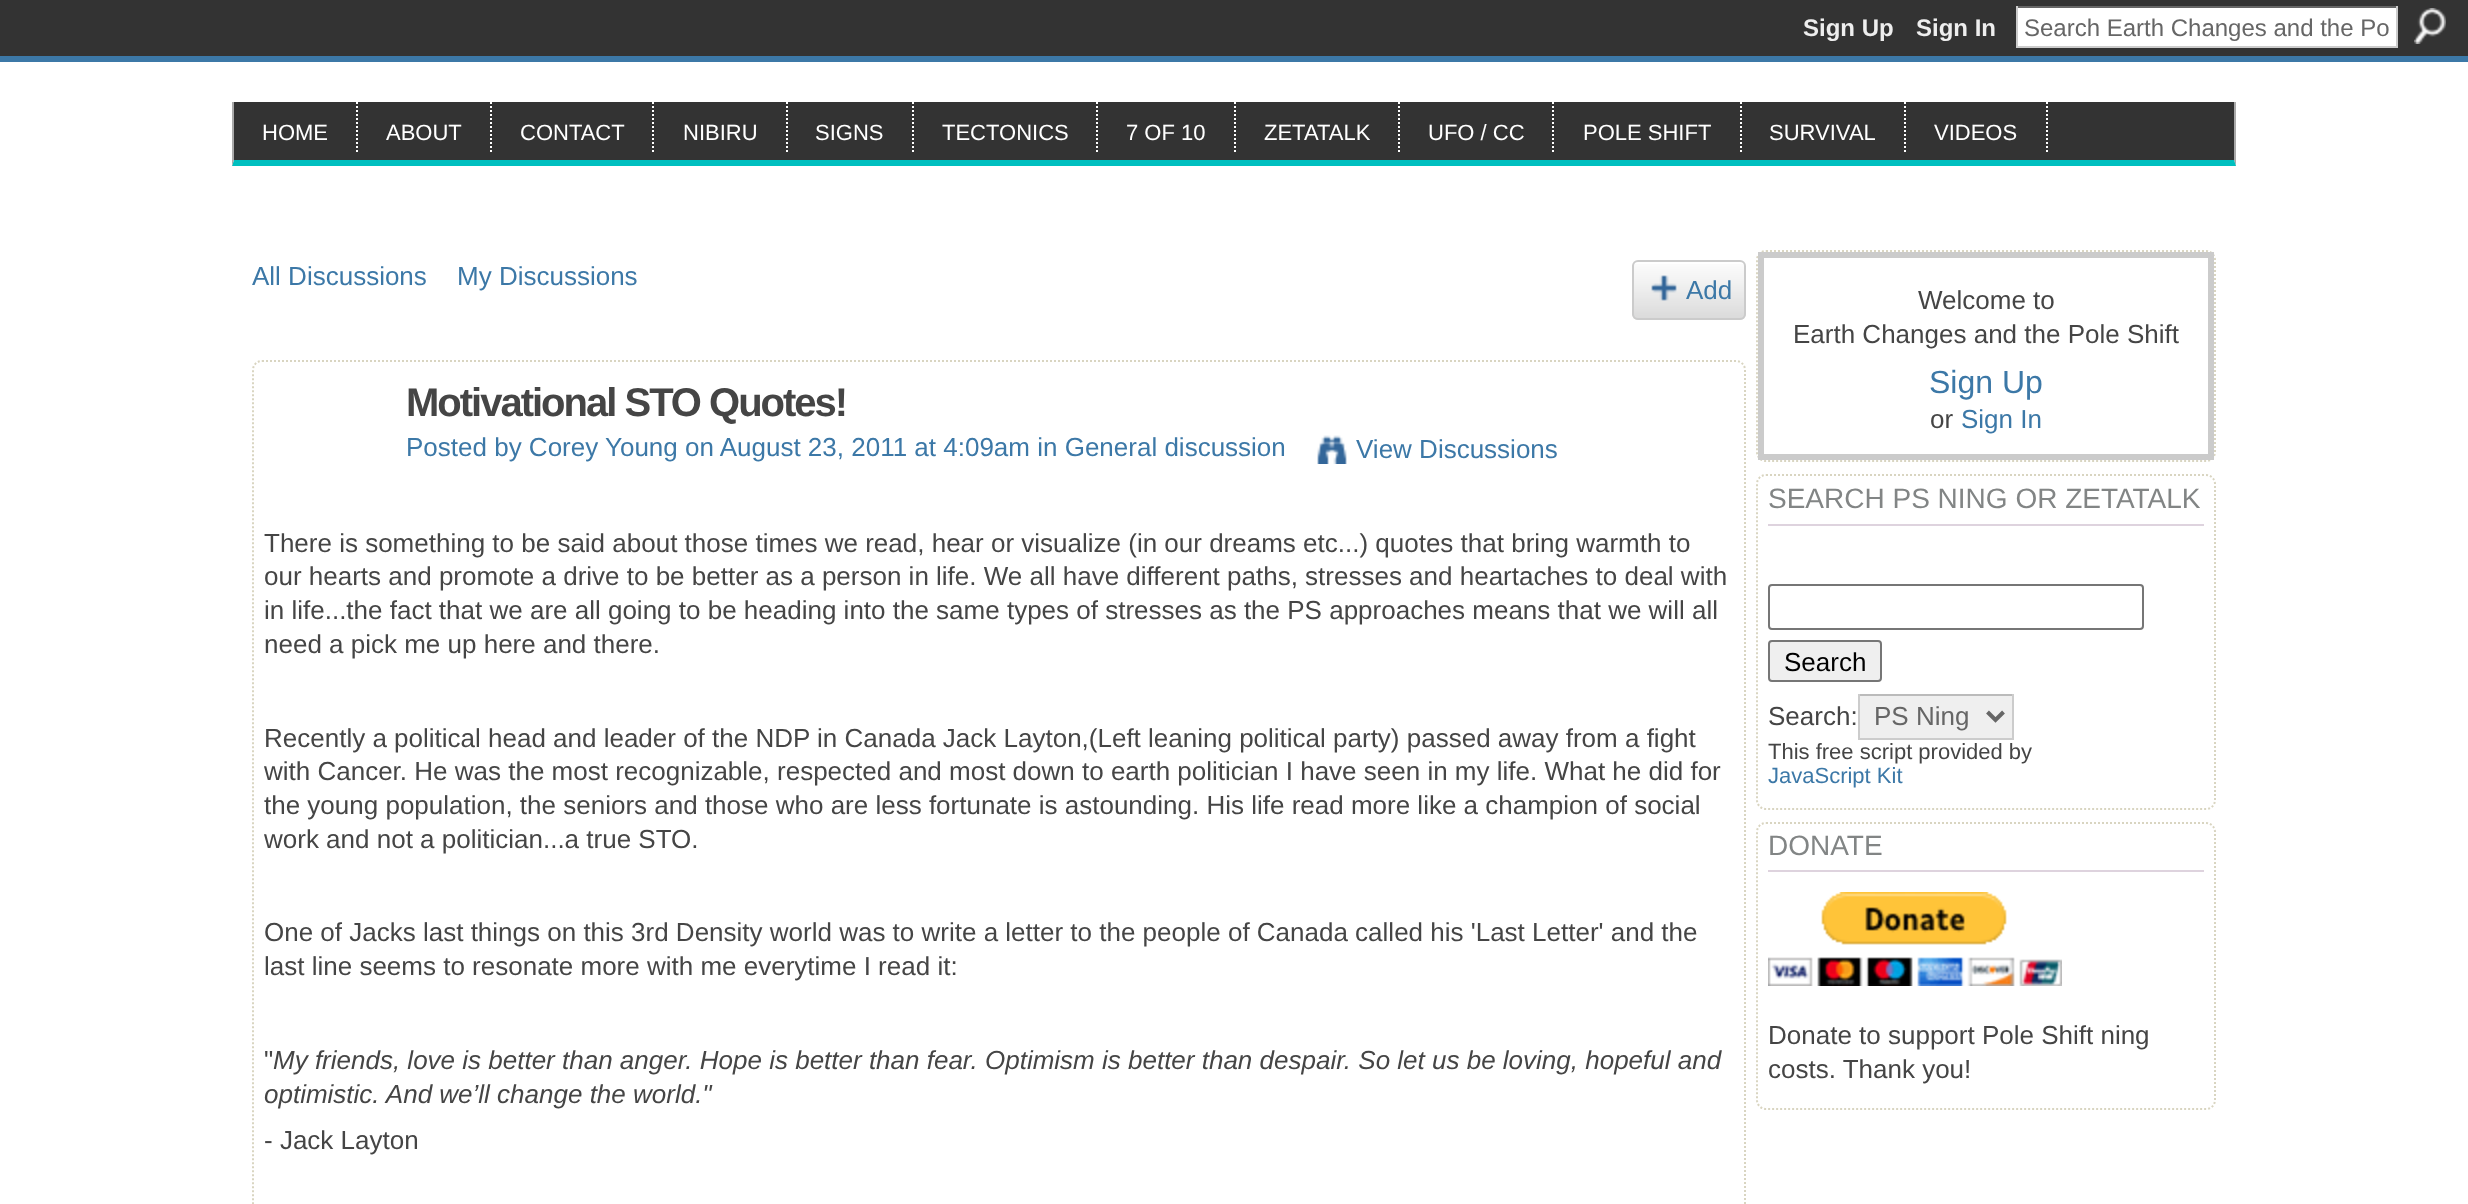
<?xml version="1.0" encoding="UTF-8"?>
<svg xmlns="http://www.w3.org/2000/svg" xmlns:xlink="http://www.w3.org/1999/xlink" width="2468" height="1204">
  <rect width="100%" height="100%" fill="#ffffff" />
  <rect width="2468" height="56" fill="#333333" />
  <rect x="2018" y="8" width="378" height="38" fill="#ffffff" />
  <rect x="2016" y="6" width="382" height="2" fill="#666666" />
  <rect x="2396" y="6" width="2" height="42" fill="#cccccc" />
  <rect x="2016" y="46" width="382" height="2" fill="#cccccc" />
  <rect x="2016" y="6" width="2" height="42" fill="#cccccc" />
  <image x="2414" y="8" width="32" height="36" xlink:href="image1.png" />
  <rect y="56" width="2468" height="6" fill="#3c78a7" />
  <rect x="234" y="102" width="2000" height="58" fill="#333333" />
  <path d="M 2236 102 v 64 l -2 -6 v -58 z" fill="#aaaaaa" />
  <path d="M 2236 166 h -2004 l 2 -6 h 2000 z" fill="#00bfbf" />
  <path d="M 232 166 v -64 h 2 v 58 z" fill="#aaaaaa" />
  <path d="M 357 94 v 58" fill="none" stroke="#ffffff" stroke-width="2" stroke-dasharray="2 2" />
  <path d="M 491 94 v 58" fill="none" stroke="#ffffff" stroke-width="2" stroke-dasharray="2 2" />
  <path d="M 653 94 v 58" fill="none" stroke="#ffffff" stroke-width="2" stroke-dasharray="2 2" />
  <path d="M 787 94 v 58" fill="none" stroke="#ffffff" stroke-width="2" stroke-dasharray="2 2" />
  <path d="M 913 94 v 58" fill="none" stroke="#ffffff" stroke-width="2" stroke-dasharray="2 2" />
  <path d="M 1097 94 v 58" fill="none" stroke="#ffffff" stroke-width="2" stroke-dasharray="2 2" />
  <path d="M 1235 94 v 58" fill="none" stroke="#ffffff" stroke-width="2" stroke-dasharray="2 2" />
  <path d="M 1399 94 v 58" fill="none" stroke="#ffffff" stroke-width="2" stroke-dasharray="2 2" />
  <path d="M 1553 94 v 58" fill="none" stroke="#ffffff" stroke-width="2" stroke-dasharray="2 2" />
  <path d="M 1741 94 v 58" fill="none" stroke="#ffffff" stroke-width="2" stroke-dasharray="2 2" />
  <path d="M 1905 94 v 58" fill="none" stroke="#ffffff" stroke-width="2" stroke-dasharray="2 2" />
  <path d="M 2047 94 v 58" fill="none" stroke="#ffffff" stroke-width="2" stroke-dasharray="2 2" />
  <image x="1632" y="264" width="114" height="56" xlink:href="image2.png" />
  <rect x="1633" y="261" width="112" height="58" rx="5" fill="none" stroke="#cbcbcb" stroke-width="2" />
  <image x="1651" y="275" width="26" height="26" xlink:href="image3.png" />
  <path d="M 262 361 h 1474 c 5 0 9 4 9 9 v 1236 c 0 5 -4 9 -9 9 h -1474 c -5 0 -9 -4 -9 -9 v -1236 c 0 -5 4 -9 9 -9 z" fill="none" stroke="#d9d5c1" stroke-width="2" stroke-dasharray="2 2" />
  <image x="1317" y="435" width="30" height="29" xlink:href="image4.png" />
  <path d="M 1766 251 h 440 c 5 0 9 4 9 9 v 192 c 0 5 -4 9 -9 9 h -440 c -5 0 -9 -4 -9 -9 v -192 c 0 -5 4 -9 9 -9 z" fill="none" stroke="#d9d5c1" stroke-width="2" stroke-dasharray="2 2" />
  <rect x="1761" y="255" width="450" height="202" fill="none" stroke="#cbcbcb" stroke-width="6" />
  <path d="M 1766 475 h 440 c 5 0 9 4 9 9 v 316 c 0 5 -4 9 -9 9 h -440 c -5 0 -9 -4 -9 -9 v -316 c 0 -5 4 -9 9 -9 z" fill="none" stroke="#d9d5c1" stroke-width="2" stroke-dasharray="2 2" />
  <rect x="1768" y="524" width="436" height="2" fill="#ded3de" />
  <rect x="1769" y="585" width="374" height="44" rx="3" fill="none" stroke="#767676" stroke-width="2" />
  <rect x="1769" y="641" width="112" height="40" rx="3" fill="#efefef" stroke="#767676" stroke-width="2" />
  <rect x="1860" y="696" width="152" height="42" fill="#efefef" />
  <rect x="1858" y="694" width="156" height="2" fill="#bbbbbb" />
  <rect x="2012" y="694" width="2" height="46" fill="#cccccc" />
  <rect x="1858" y="738" width="156" height="2" fill="#cccccc" />
  <rect x="1858" y="694" width="2" height="46" fill="#cccccc" />
  <path d="M 1987.5 712 l 8 8 l 8 -8" fill="none" stroke="#666666" stroke-width="4" />
  <path d="M 1766 823 h 440 c 5 0 9 4 9 9 v 268 c 0 5 -4 9 -9 9 h -440 c -5 0 -9 -4 -9 -9 v -268 c 0 -5 4 -9 9 -9 z" fill="none" stroke="#d9d5c1" stroke-width="2" stroke-dasharray="2 2" />
  <rect x="1768" y="870" width="436" height="2" fill="#ded3de" />
  <image x="1768" y="892" width="294" height="94" xlink:href="image5.png" />
  <text x="1803" y="36" style="font-family: Liberation Sans; font-size: 24px; font-weight: bold; fill: #eeeeee">Sign Up</text>
  <text x="1916" y="36" style="font-family: Liberation Sans; font-size: 24px; font-weight: bold; fill: #eeeeee">Sign In</text>
  <text x="2024" y="36" style="font-family: Liberation Sans; font-size: 24px; fill: #666666">Search Earth Changes and the Po</text>
  <text x="262" y="140" style="font-family: Liberation Sans; font-size: 22px; fill: #ffffff">HOME</text>
  <text x="386" y="140" style="font-family: Liberation Sans; font-size: 22px; fill: #ffffff">ABOUT</text>
  <text x="520" y="140" style="font-family: Liberation Sans; font-size: 22px; fill: #ffffff">CONTACT</text>
  <text x="683" y="140" style="font-family: Liberation Sans; font-size: 22px; fill: #ffffff">NIBIRU</text>
  <text x="815" y="140" style="font-family: Liberation Sans; font-size: 22px; fill: #ffffff">SIGNS</text>
  <text x="942" y="140" style="font-family: Liberation Sans; font-size: 22px; fill: #ffffff">TECTONICS</text>
  <text x="1126" y="140" style="font-family: Liberation Sans; font-size: 22px; fill: #ffffff">7 OF 10</text>
  <text x="1264" y="140" style="font-family: Liberation Sans; font-size: 22px; fill: #ffffff">ZETATALK</text>
  <text x="1428" y="140" style="font-family: Liberation Sans; font-size: 22px; fill: #ffffff">UFO / CC</text>
  <text x="1583" y="140" style="font-family: Liberation Sans; font-size: 22px; fill: #ffffff">POLE SHIFT</text>
  <text x="1769" y="140" style="font-family: Liberation Sans; font-size: 22px; fill: #ffffff">SURVIVAL</text>
  <text x="1934" y="140" style="font-family: Liberation Sans; font-size: 22px; fill: #ffffff">VIDEOS</text>
  <text x="252" y="285" style="font-family: Liberation Sans; font-size: 26px; fill: #3c78a7">All Discussions</text>
  <text x="457" y="285" style="font-family: Liberation Sans; font-size: 26px; fill: #3c78a7">My Discussions</text>
  <text x="1686" y="299" style="font-family: Liberation Sans; font-size: 26px; fill: #3c78a7">Add</text>
  <text x="406" y="416" style="font-family: Liberation Sans; font-size: 40px; font-weight: bold; letter-spacing: -2px; fill: #454545">Motivational STO Quotes!</text>
  <text x="406" y="456" style="font-family: Liberation Sans; font-size: 26px; fill: #3c78a7">Posted by Corey Young on August 23, 2011 at 4:09am in General discussion</text>
  <text x="1356" y="458" style="font-family: Liberation Sans; font-size: 26px; fill: #3c78a7">View Discussions</text>
  <text x="264" y="552" style="font-family: Liberation Sans; font-size: 26px; fill: #454545">There is something to be said about those times we read, hear or visualize (in our dreams etc...) quotes that bring warmth to</text>
  <text x="264" y="585" style="font-family: Liberation Sans; font-size: 26px; fill: #454545">our hearts and promote a drive to be better as a person in life. We all have different paths, stresses and heartaches to deal with</text>
  <text x="264" y="619" style="font-family: Liberation Sans; font-size: 26px; fill: #454545">in life...the fact that we are all going to be heading into the same types of stresses as the PS approaches means that we will all</text>
  <text x="264" y="653" style="font-family: Liberation Sans; font-size: 26px; fill: #454545">need a pick me up here and there.</text>
  <text x="264" y="747" style="font-family: Liberation Sans; font-size: 26px; fill: #454545">Recently a political head and leader of the NDP in Canada Jack Layton,(Left leaning political party) passed away from a fight</text>
  <text x="264" y="780" style="font-family: Liberation Sans; font-size: 26px; fill: #454545">with Cancer. He was the most recognizable, respected and most down to earth politician I have seen in my life. What he did for</text>
  <text x="264" y="814" style="font-family: Liberation Sans; font-size: 26px; fill: #454545">the young population, the seniors and those who are less fortunate is astounding. His life read more like a champion of social</text>
  <text x="264" y="848" style="font-family: Liberation Sans; font-size: 26px; fill: #454545">work and not a politician...a true STO.</text>
  <text x="264" y="941" style="font-family: Liberation Sans; font-size: 26px; fill: #454545">One of Jacks last things on this 3rd Density world was to write a letter to the people of Canada called his 'Last Letter' and the</text>
  <text x="264" y="975" style="font-family: Liberation Sans; font-size: 26px; fill: #454545">last line seems to resonate more with me everytime I read it:</text>
  <text x="264" y="1069" style="font-family: Liberation Sans; font-size: 26px; fill: #454545">"</text>
  <text x="273" y="1069" style="font-family: Liberation Sans; font-size: 26px; font-style: italic; fill: #454545">My friends, love is better than anger. Hope is better than fear. Optimism is better than despair. So let us be loving, hopeful and</text>
  <text x="264" y="1103" style="font-family: Liberation Sans; font-size: 26px; font-style: italic; fill: #454545">optimistic. And we’ll change the world."</text>
  <text x="264" y="1149" style="font-family: Liberation Sans; font-size: 26px; fill: #454545">- Jack Layton</text>
  <text x="1918" y="309" style="font-family: Liberation Sans; font-size: 26px; fill: #454545">Welcome to</text>
  <text x="1793" y="343" style="font-family: Liberation Sans; font-size: 26px; fill: #454545">Earth Changes and the Pole Shift</text>
  <text x="1929" y="393" style="font-family: Liberation Sans; font-size: 32px; fill: #3c78a7">Sign Up</text>
  <text x="1930" y="428" style="font-family: Liberation Sans; font-size: 26px; fill: #454545">or</text>
  <text x="1961" y="428" style="font-family: Liberation Sans; font-size: 26px; fill: #3c78a7">Sign In</text>
  <text x="1768" y="508" style="font-family: Liberation Sans; font-size: 28px; fill: #828585">SEARCH PS NING OR ZETATALK</text>
  <text x="1784" y="671" style="font-family: Liberation Sans; font-size: 26px; fill: #000000">Search</text>
  <text x="1768" y="725" style="font-family: Liberation Sans; font-size: 26px; fill: #454545">Search:</text>
  <text x="1874" y="725" style="font-family: Liberation Sans; font-size: 26px; fill: #666666">PS Ning</text>
  <text x="1768" y="759" style="font-family: Liberation Sans; font-size: 22px; fill: #454545">This free script provided by</text>
  <text x="1768" y="783" style="font-family: Liberation Sans; font-size: 22px; fill: #3c78a7">JavaScript Kit</text>
  <text x="1768" y="855" style="font-family: Liberation Sans; font-size: 28px; fill: #828585">DONATE</text>
  <text x="1768" y="1044" style="font-family: Liberation Sans; font-size: 26px; fill: #454545">Donate to support Pole Shift ning</text>
  <text x="1768" y="1078" style="font-family: Liberation Sans; font-size: 26px; fill: #454545">costs. Thank you!</text>
</svg>
